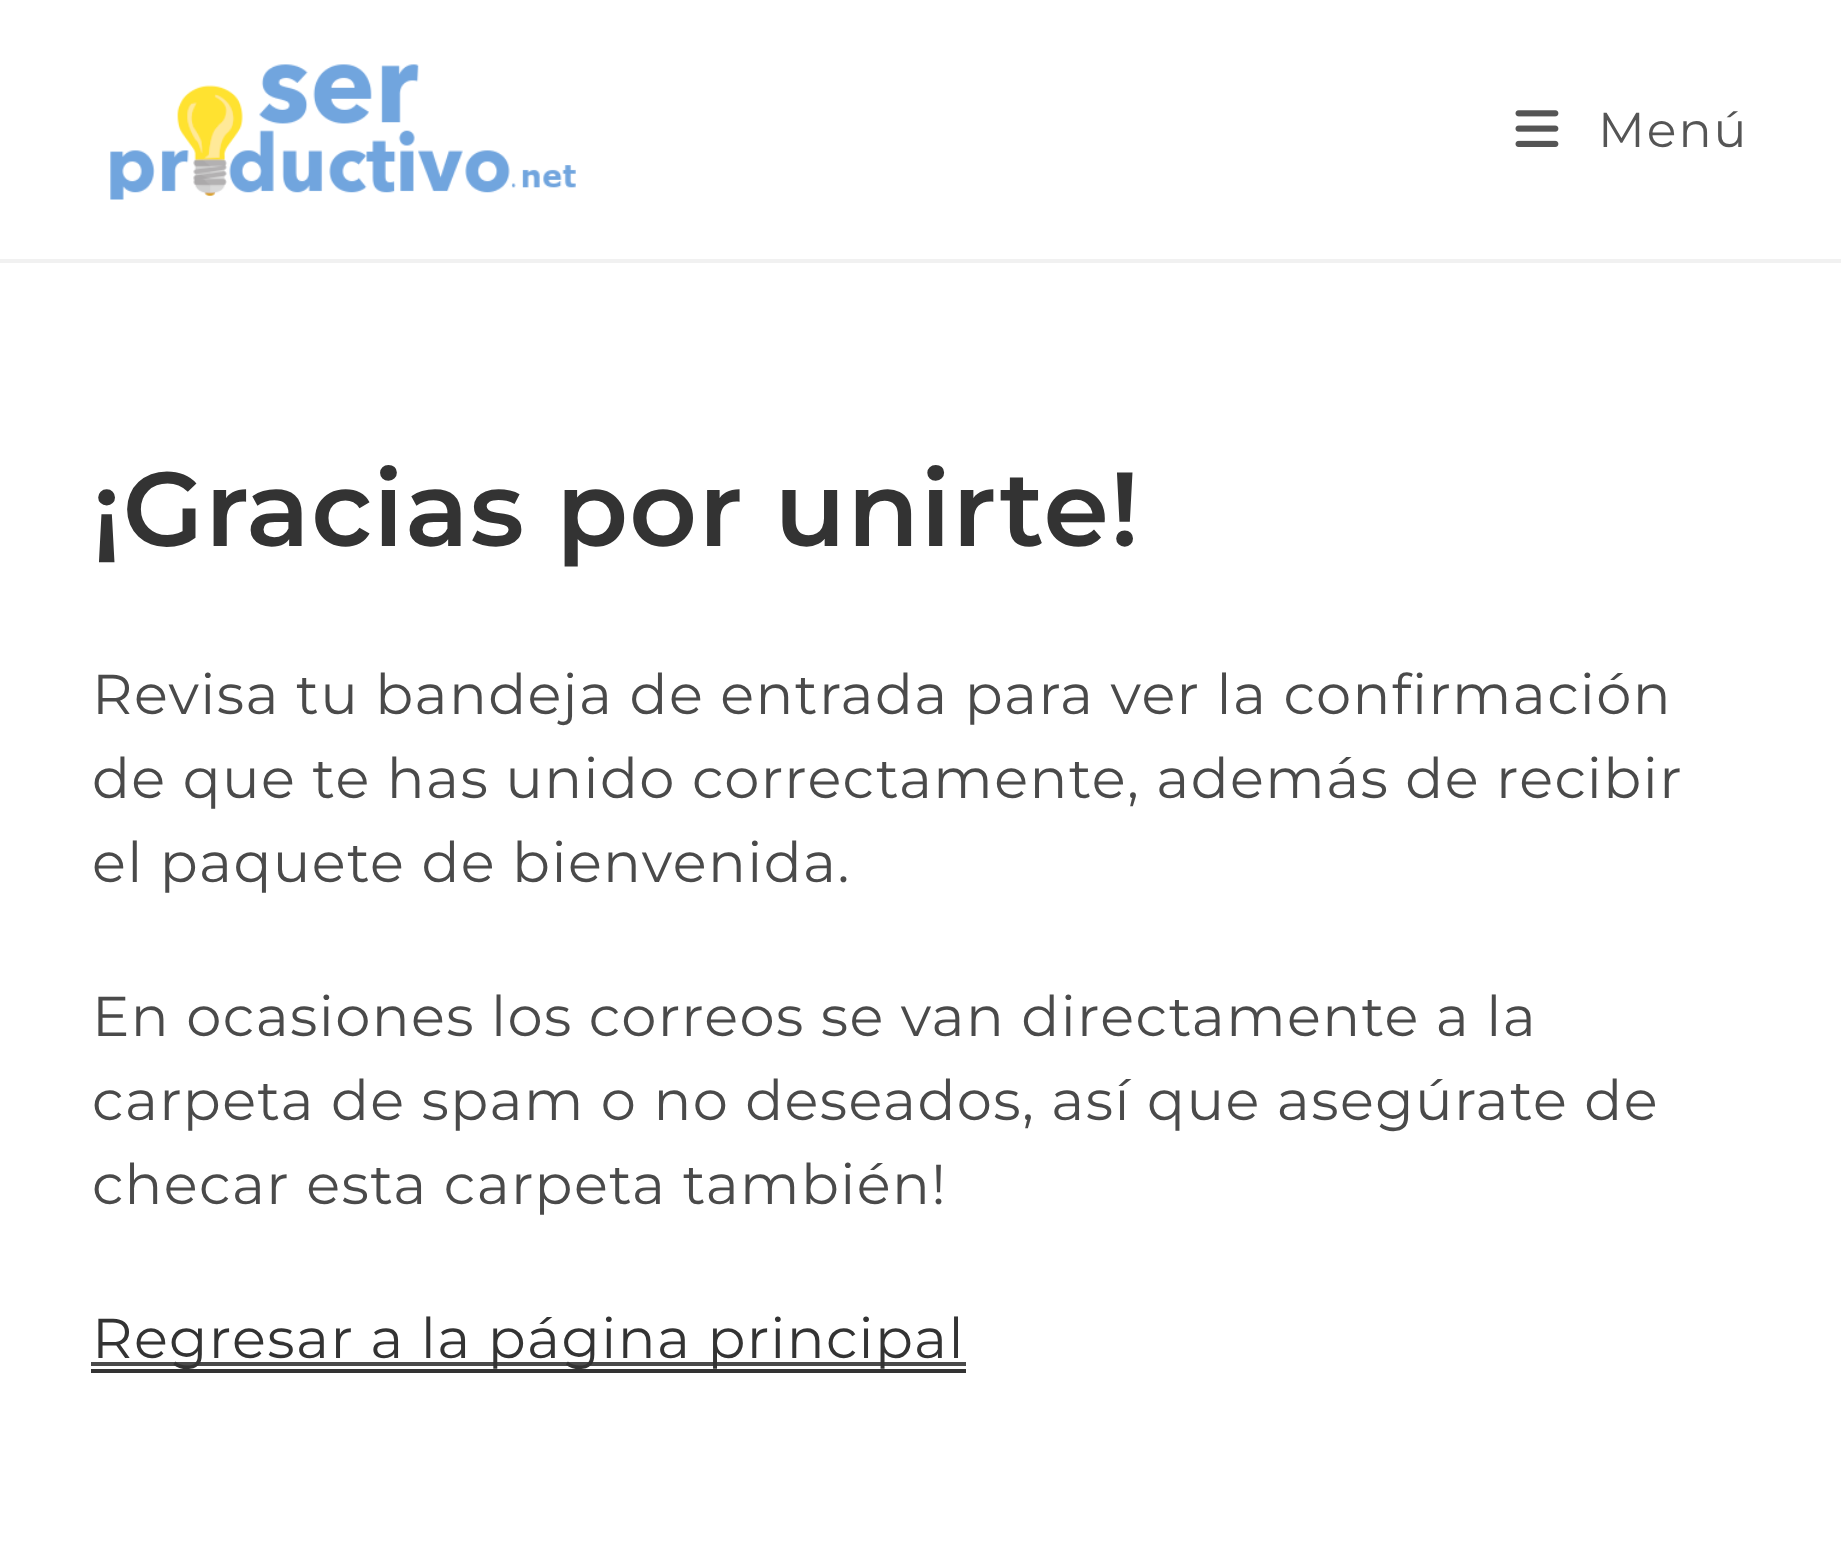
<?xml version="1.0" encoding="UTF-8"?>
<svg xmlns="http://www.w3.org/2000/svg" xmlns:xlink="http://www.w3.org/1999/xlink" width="1841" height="1542">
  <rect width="100%" height="100%" fill="#ffffff" />
  <rect y="259" width="1841" height="4" fill="#f1f1f1" />
  <image x="110" y="64" width="466" height="136" xlink:href="image1.png" />
  <image x="1515" y="110" width="44" height="37" xlink:href="image2.png" />
  <rect x="91" y="1369" width="875" height="4" fill="#333333" />
  <rect x="91" y="1362" width="875" height="4" fill="#4a4a4a" />
  <text x="1598" y="147" style="font-family: Montserrat; font-size: 49px; letter-spacing: 2px; fill: #555555">Menú</text>
  <text x="92" y="546" style="font-family: Montserrat; font-size: 105px; font-weight: 600; letter-spacing: 1.4px; fill: #333333">¡Gracias por unirte!</text>
  <text x="92" y="714" style="font-family: Montserrat; font-size: 56px; letter-spacing: 1.4px; fill: #4a4a4a">Revisa tu bandeja de entrada para ver la confirmación</text>
  <text x="92" y="798" style="font-family: Montserrat; font-size: 56px; letter-spacing: 1.4px; fill: #4a4a4a">de que te has unido correctamente, además de recibir</text>
  <text x="92" y="882" style="font-family: Montserrat; font-size: 56px; letter-spacing: 1.4px; fill: #4a4a4a">el paquete de bienvenida.</text>
  <text x="92" y="1036" style="font-family: Montserrat; font-size: 56px; letter-spacing: 1.4px; fill: #4a4a4a">En ocasiones los correos se van directamente a la</text>
  <text x="92" y="1120" style="font-family: Montserrat; font-size: 56px; letter-spacing: 1.4px; fill: #4a4a4a">carpeta de spam o no deseados, así que asegúrate de</text>
  <text x="92" y="1204" style="font-family: Montserrat; font-size: 56px; letter-spacing: 1.4px; fill: #4a4a4a">checar esta carpeta también!</text>
  <text x="92" y="1358" style="font-family: Montserrat; font-size: 56px; letter-spacing: 1.4px; fill: #333333">Regresar a la página principal</text>
</svg>
